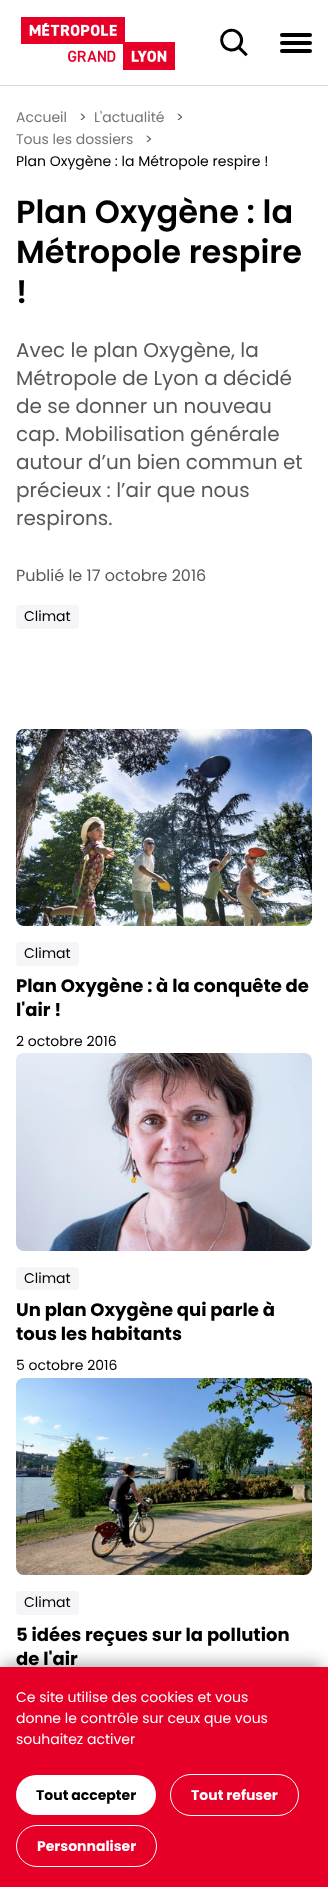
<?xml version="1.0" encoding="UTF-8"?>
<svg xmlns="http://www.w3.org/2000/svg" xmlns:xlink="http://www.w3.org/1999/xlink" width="328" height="1887">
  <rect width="100%" height="100%" fill="#ffffff" />
  <rect y="85" width="328" height="1" fill="#dadada" />
  <image x="21" y="17" width="154" height="53" xlink:href="image1.png" />
  <image x="220" y="28" width="28" height="29" xlink:href="image2.png" />
  <rect x="280" y="33" width="32" height="4" rx="2" fill="#000000" />
  <rect x="280" y="41" width="32" height="4" rx="2" fill="#000000" />
  <rect x="280" y="49" width="32" height="4" rx="2" fill="#000000" />
  <rect x="16" y="605" width="63" height="24" rx="4" fill="#f5f5f7" />
  <rect x="16" y="729" width="296" height="197" rx="8" fill="#ebebef" />
  <image x="16" y="729" width="296" height="197" xlink:href="image3.png" />
  <rect x="16" y="942" width="63" height="24" rx="4" fill="#f5f5f7" />
  <rect x="16" y="1053" width="296" height="198" rx="8" fill="#ebebef" />
  <image x="16" y="1053" width="296" height="198" xlink:href="image4.png" />
  <rect x="16" y="1267" width="63" height="23" rx="4" fill="#f5f5f7" />
  <rect x="16" y="1378" width="296" height="197" rx="8" fill="#ebebef" />
  <image x="16" y="1378" width="296" height="197" xlink:href="image5.png" />
  <rect x="16" y="1591" width="63" height="24" rx="4" fill="#f5f5f7" />
  <rect x="2" y="1663" width="320" height="212" fill="#000000" fill-opacity="0.3" filter="blur(7.5px)" />
  <rect y="1667" width="328" height="220" fill="#e60028" />
  <rect x="16" y="1775" width="140" height="40" rx="20" fill="#ffffff" />
  <rect x="170.5" y="1774.5" width="128" height="41" rx="20.5" fill="none" stroke="#ffffff" />
  <rect x="16.5" y="1825.5" width="140" height="41" rx="20.5" fill="none" stroke="#ffffff" />
  <text x="16" y="122" style="font-family: Poppins; font-size: 14px; fill: #757575">Accueil</text>
  <text x="79" y="122" style="font-family: Poppins; font-size: 14px; fill: #585858">&gt;</text>
  <text x="94" y="122" style="font-family: Poppins; font-size: 14px; fill: #757575">L'actualité</text>
  <text x="176" y="122" style="font-family: Poppins; font-size: 14px; fill: #585858">&gt;</text>
  <text x="16" y="144" style="font-family: Poppins; font-size: 14px; fill: #757575">Tous les dossiers</text>
  <text x="145" y="144" style="font-family: Poppins; font-size: 14px; fill: #585858">&gt;</text>
  <text x="16" y="166" style="font-family: Poppins; font-size: 14px; fill: #000000">Plan Oxygène : la Métropole respire !</text>
  <text x="16" y="223" style="font-family: Poppins; font-size: 32px; font-weight: 600; fill: #000000">Plan Oxygène : la</text>
  <text x="16" y="263" style="font-family: Poppins; font-size: 32px; font-weight: 600; fill: #000000">Métropole respire</text>
  <text x="16" y="303" style="font-family: Poppins; font-size: 32px; font-weight: 600; fill: #000000">!</text>
  <text x="16" y="357" style="font-family: Poppins; font-size: 20px; fill: #585858">Avec le plan Oxygène, la</text>
  <text x="16" y="385" style="font-family: Poppins; font-size: 20px; fill: #585858">Métropole de Lyon a décidé</text>
  <text x="16" y="413" style="font-family: Poppins; font-size: 20px; fill: #585858">de se donner un nouveau</text>
  <text x="16" y="441" style="font-family: Poppins; font-size: 20px; fill: #585858">cap. Mobilisation générale</text>
  <text x="16" y="469" style="font-family: Poppins; font-size: 20px; fill: #585858">autour d’un bien commun et</text>
  <text x="16" y="497" style="font-family: Poppins; font-size: 20px; fill: #585858">précieux : l’air que nous</text>
  <text x="16" y="525" style="font-family: Poppins; font-size: 20px; fill: #585858">respirons.</text>
  <text x="16" y="581" style="font-family: Poppins; font-size: 16px; fill: #585858">Publié le 17 octobre 2016</text>
  <text x="24" y="621" style="font-family: Poppins; font-size: 14px; fill: #000000">Climat</text>
  <text x="24" y="958" style="font-family: Poppins; font-size: 14px; fill: #000000">Climat</text>
  <text x="16" y="992" style="font-family: Poppins; font-size: 18px; font-weight: bold; fill: #000000">Plan Oxygène : à la conquête de</text>
  <text x="16" y="1016" style="font-family: Poppins; font-size: 18px; font-weight: bold; fill: #000000">l'air !</text>
  <text x="16" y="1046" style="font-family: Poppins; font-size: 14px; fill: #000000">2 octobre 2016</text>
  <text x="24" y="1283" style="font-family: Poppins; font-size: 14px; fill: #000000">Climat</text>
  <text x="16" y="1316" style="font-family: Poppins; font-size: 18px; font-weight: bold; fill: #000000">Un plan Oxygène qui parle à</text>
  <text x="16" y="1340" style="font-family: Poppins; font-size: 18px; font-weight: bold; fill: #000000">tous les habitants</text>
  <text x="16" y="1370" style="font-family: Poppins; font-size: 14px; fill: #000000">5 octobre 2016</text>
  <text x="24" y="1607" style="font-family: Poppins; font-size: 14px; fill: #000000">Climat</text>
  <text x="16" y="1641" style="font-family: Poppins; font-size: 18px; font-weight: bold; fill: #000000">5 idées reçues sur la pollution</text>
  <text x="16" y="1665" style="font-family: Poppins; font-size: 18px; font-weight: bold; fill: #000000">de l'air</text>
  <text x="16" y="1702" style="font-family: Poppins; font-size: 14px; fill: #ffffff">Ce site utilise des cookies et vous</text>
  <text x="16" y="1723" style="font-family: Poppins; font-size: 14px; fill: #ffffff">donne le contrôle sur ceux que vous</text>
  <text x="16" y="1744" style="font-family: Poppins; font-size: 14px; fill: #ffffff">souhaitez activer</text>
  <text x="36" y="1800" style="font-family: Poppins; font-size: 14px; font-weight: bold; fill: #000000">Tout accepter</text>
  <text x="191" y="1800" style="font-family: Poppins; font-size: 14px; font-weight: bold; fill: #ffffff">Tout refuser</text>
  <text x="37" y="1851" style="font-family: Poppins; font-size: 14px; font-weight: bold; fill: #ffffff">Personnaliser</text>
</svg>
